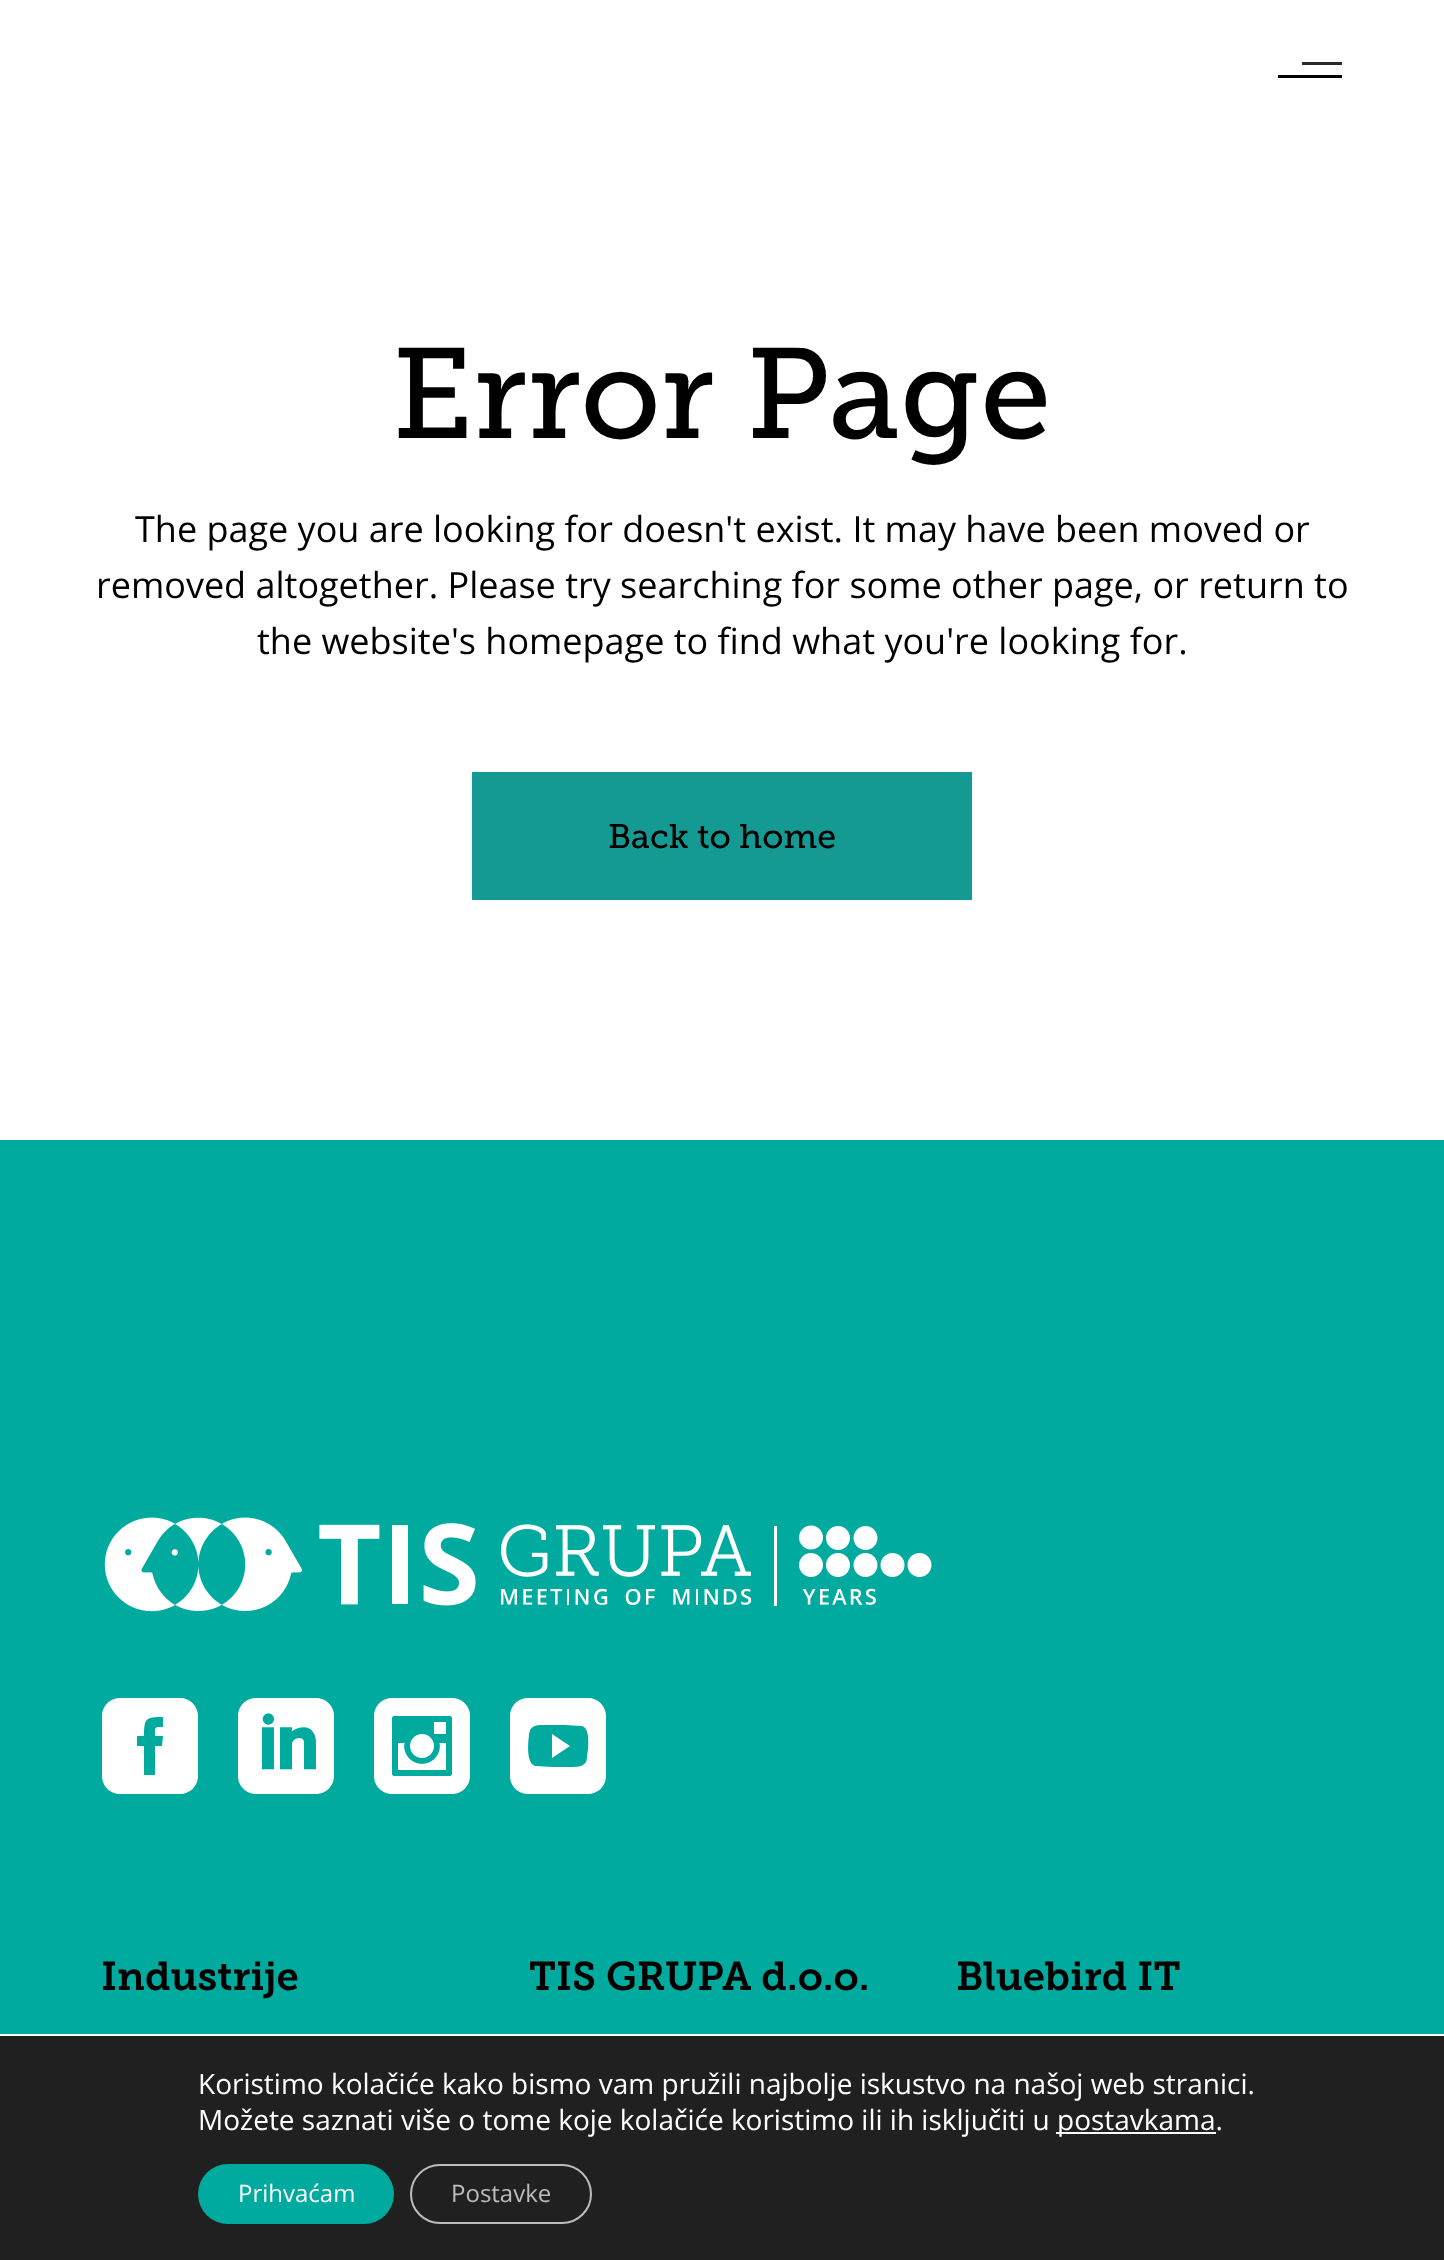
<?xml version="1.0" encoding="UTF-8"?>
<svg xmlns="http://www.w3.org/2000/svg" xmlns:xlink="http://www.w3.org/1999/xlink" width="1444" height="2260">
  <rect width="100%" height="100%" fill="#ffffff" />
  <rect x="1278" y="75" width="64" height="3" fill="#000000" />
  <rect x="1302" y="62" width="40" height="3" fill="#2b2b2b" />
  <rect x="472" y="772" width="500" height="128" fill="#159a93" />
  <rect y="1140" width="1444" height="894" fill="#00aa9e" />
  <image x="104" y="1517" width="828" height="95" xlink:href="image1.png" />
  <path d="M 180 1698 c 10 0 18 8 18 18 v 60 c 0 10 -8 18 -18 18 h -60 c -10 0 -18 -8 -18 -18 v -60 c 0 -10 8 -18 18 -18 z m -18 48 l 1 -10 h -8 c 0 -9 -1 -9 8 -9 v -10 c -17 0 -19 1 -19 19 h -7 v 10 h 7 v 29 h 11 v -29 z" fill="#ffffff" />
  <image x="238" y="1698" width="96" height="96" xlink:href="image2.png" />
  <image x="374" y="1698" width="96" height="96" xlink:href="image3.png" />
  <path d="M 552 1758 v -24 l 18 12 z m 36 -60 c 10 0 18 8 18 18 v 60 c 0 10 -8 18 -18 18 h -60 c -10 0 -18 -8 -18 -18 v -60 c 0 -10 8 -18 18 -18 z m -1 59 c 1 -7 4 -29 -5 -31 l -18 -1 h -17 c -9 0 -17 -1 -18 10 c -1 8 -3 28 6 31 l 18 1 h 16 c 9 0 18 0 18 -10 z" fill="#ffffff" />
  <rect y="2036" width="1444" height="224" fill="#202020" />
  <rect x="1056" y="2132" width="160" height="2" fill="#ffffff" />
  <rect x="198" y="2164" width="196" height="60" rx="30" fill="#00aa9e" />
  <rect x="411" y="2165" width="180" height="58" rx="29" fill="none" stroke="#bcbcbc" stroke-width="2" />
  <text x="392" y="438" style="font-family: Museo Slab; font-size: 128px; fill: #000000">Error Page</text>
  <text x="135" y="542" style="font-family: Open Sans; font-size: 36px; fill: #000000">The page you are looking for doesn't exist. It may have been moved or</text>
  <text x="96" y="598" style="font-family: Open Sans; font-size: 36px; fill: #000000">removed altogether. Please try searching for some other page, or return to</text>
  <text x="257" y="654" style="font-family: Open Sans; font-size: 36px; fill: #000000">the website's homepage to find what you're looking for.</text>
  <text x="608" y="848" style="font-family: Museo Slab; font-size: 34px; fill: #000000">Back to home</text>
  <text x="101" y="1990" style="font-family: 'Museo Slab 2'; font-size: 40px; fill: #000000">Industrije</text>
  <text x="529" y="1990" style="font-family: 'Museo Slab 2'; font-size: 40px; fill: #000000">TIS GRUPA d.o.o.</text>
  <text x="956" y="1990" style="font-family: 'Museo Slab 2'; font-size: 40px; fill: #000000">Bluebird IT</text>
  <text x="198" y="2094" style="font-family: Open Sans; font-size: 28px; fill: #ffffff">Koristimo kolačiće kako bismo vam pružili najbolje iskustvo na našoj web stranici.</text>
  <text x="198" y="2130" style="font-family: Open Sans; font-size: 28px; fill: #ffffff">Možete saznati više o tome koje kolačiće koristimo ili ih isključiti u</text>
  <text x="1057" y="2130" style="font-family: Open Sans; font-size: 28px; fill: #ffffff">postavkama.</text>
  <text x="238" y="2202" style="font-family: Open Sans; font-size: 24px; fill: #ffffff">Prihvaćam</text>
  <text x="451" y="2202" style="font-family: Open Sans; font-size: 24px; fill: #bcbcbc">Postavke</text>
</svg>
